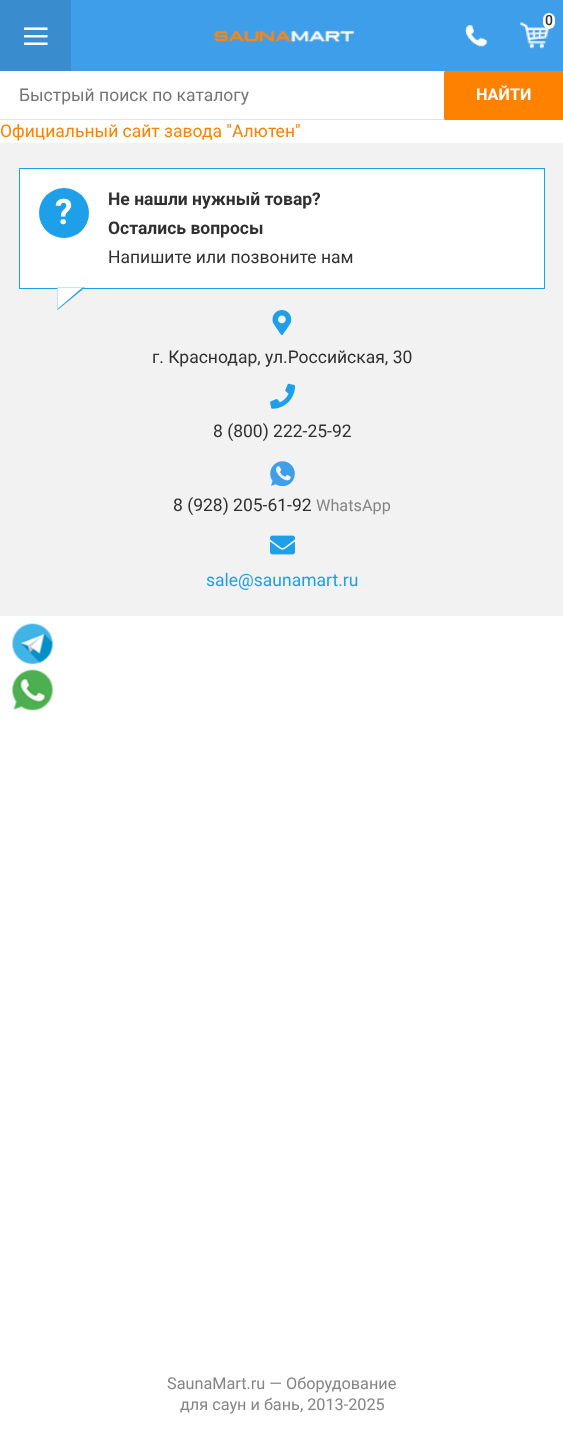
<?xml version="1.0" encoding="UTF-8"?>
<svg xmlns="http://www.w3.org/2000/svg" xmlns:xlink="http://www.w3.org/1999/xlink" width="563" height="1435">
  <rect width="100%" height="100%" fill="#ffffff" />
  <rect x="71" width="492" height="71" fill="#3f9ee9" />
  <rect width="71" height="71" fill="#398cce" />
  <image x="24" y="27" width="24" height="18" xlink:href="image1.png" />
  <image x="520" y="22" width="29" height="27" xlink:href="image2.png" />
  <rect x="543" y="13" width="12" height="16" rx="6" fill="#ffffff" />
  <image x="213" y="30" width="142" height="13" xlink:href="image3.png" />
  <image x="465" y="25" width="23" height="22" xlink:href="image4.png" />
  <image x="465" y="25" width="23" height="22" xlink:href="image5.png" />
  <rect y="119" width="444" height="1" fill="#e4e4e4" />
  <rect x="444.5" y="71.5" width="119" height="48" rx="0.5" fill="#ff8100" stroke="#ff8100" />
  <rect y="143" width="563" height="473" fill="#f2f2f2" />
  <rect x="19.5" y="168.5" width="525" height="120" fill="#ffffff" stroke="#1d9fea" />
  <circle cx="64" cy="213" r="25" fill="#1d9fea" />
  <path d="M 57.5 287.5 h 27.5 l -27.5 22.5 z" fill="#1d9fea" />
  <path d="M 57.5 287.5 h 25 l -25 21.5 z" fill="#ffffff" />
  <image x="272" y="310" width="20" height="25" xlink:href="image6.png" />
  <image x="270" y="383" width="25" height="26" xlink:href="image7.png" />
  <image x="270" y="461" width="25" height="25" xlink:href="image8.png" />
  <image x="270" y="535" width="25" height="20" xlink:href="image9.png" />
  <image x="12" y="623" width="41" height="41" xlink:href="image10.png" />
  <image x="12" y="669" width="41" height="42" xlink:href="image11.png" />
  <text x="545" y="25" style="font-family: Roboto; font-size: 14px; font-weight: 500; fill: #303030">0</text>
  <text x="19" y="101" style="font-family: Roboto; font-size: 17.5px; fill: #757575">Быстрый поиск по каталогу</text>
  <text x="476" y="100" style="font-family: Roboto; font-size: 16.25px; font-weight: bold; fill: #ffffff">НАЙТИ</text>
  <text x="0" y="137" style="font-family: Roboto; font-size: 17.5px; fill: #ff8100">Официальный сайт завода "Алютен"</text>
  <text x="55" y="224" style="font-family: Roboto; font-size: 35px; font-weight: bold; fill: #ffffff">?</text>
  <text x="108" y="205" style="font-family: Roboto; font-size: 17.5px; font-weight: bold; fill: #303030">Не нашли нужный товар?</text>
  <text x="108" y="234" style="font-family: Roboto; font-size: 17.5px; font-weight: bold; fill: #303030">Остались вопросы</text>
  <text x="108" y="263" style="font-family: Roboto; font-size: 17.5px; fill: #303030">Напишите или позвоните нам</text>
  <text x="152" y="363" style="font-family: Roboto; font-size: 17.5px; fill: #303030">г. Краснодар, ул.Российская, 30</text>
  <text x="213" y="437" style="font-family: Roboto; font-size: 17.5px; fill: #303030">8 (800) 222-25-92</text>
  <text x="173" y="511" style="font-family: Roboto; font-size: 17.5px; fill: #303030">8 (928) 205-61-92</text>
  <text x="316" y="511" style="font-family: Roboto; font-size: 16.25px; fill: #858585">WhatsApp</text>
  <text x="206" y="586" style="font-family: Roboto; font-size: 17.5px; fill: #1d9fea">sale@saunamart.ru</text>
  <text x="167" y="1389" style="font-family: Roboto; font-size: 16.25px; fill: #858585">SaunaMart.ru — Оборудование</text>
  <text x="180" y="1410" style="font-family: Roboto; font-size: 16.25px; fill: #858585">для саун и бань, 2013-2025</text>
</svg>
